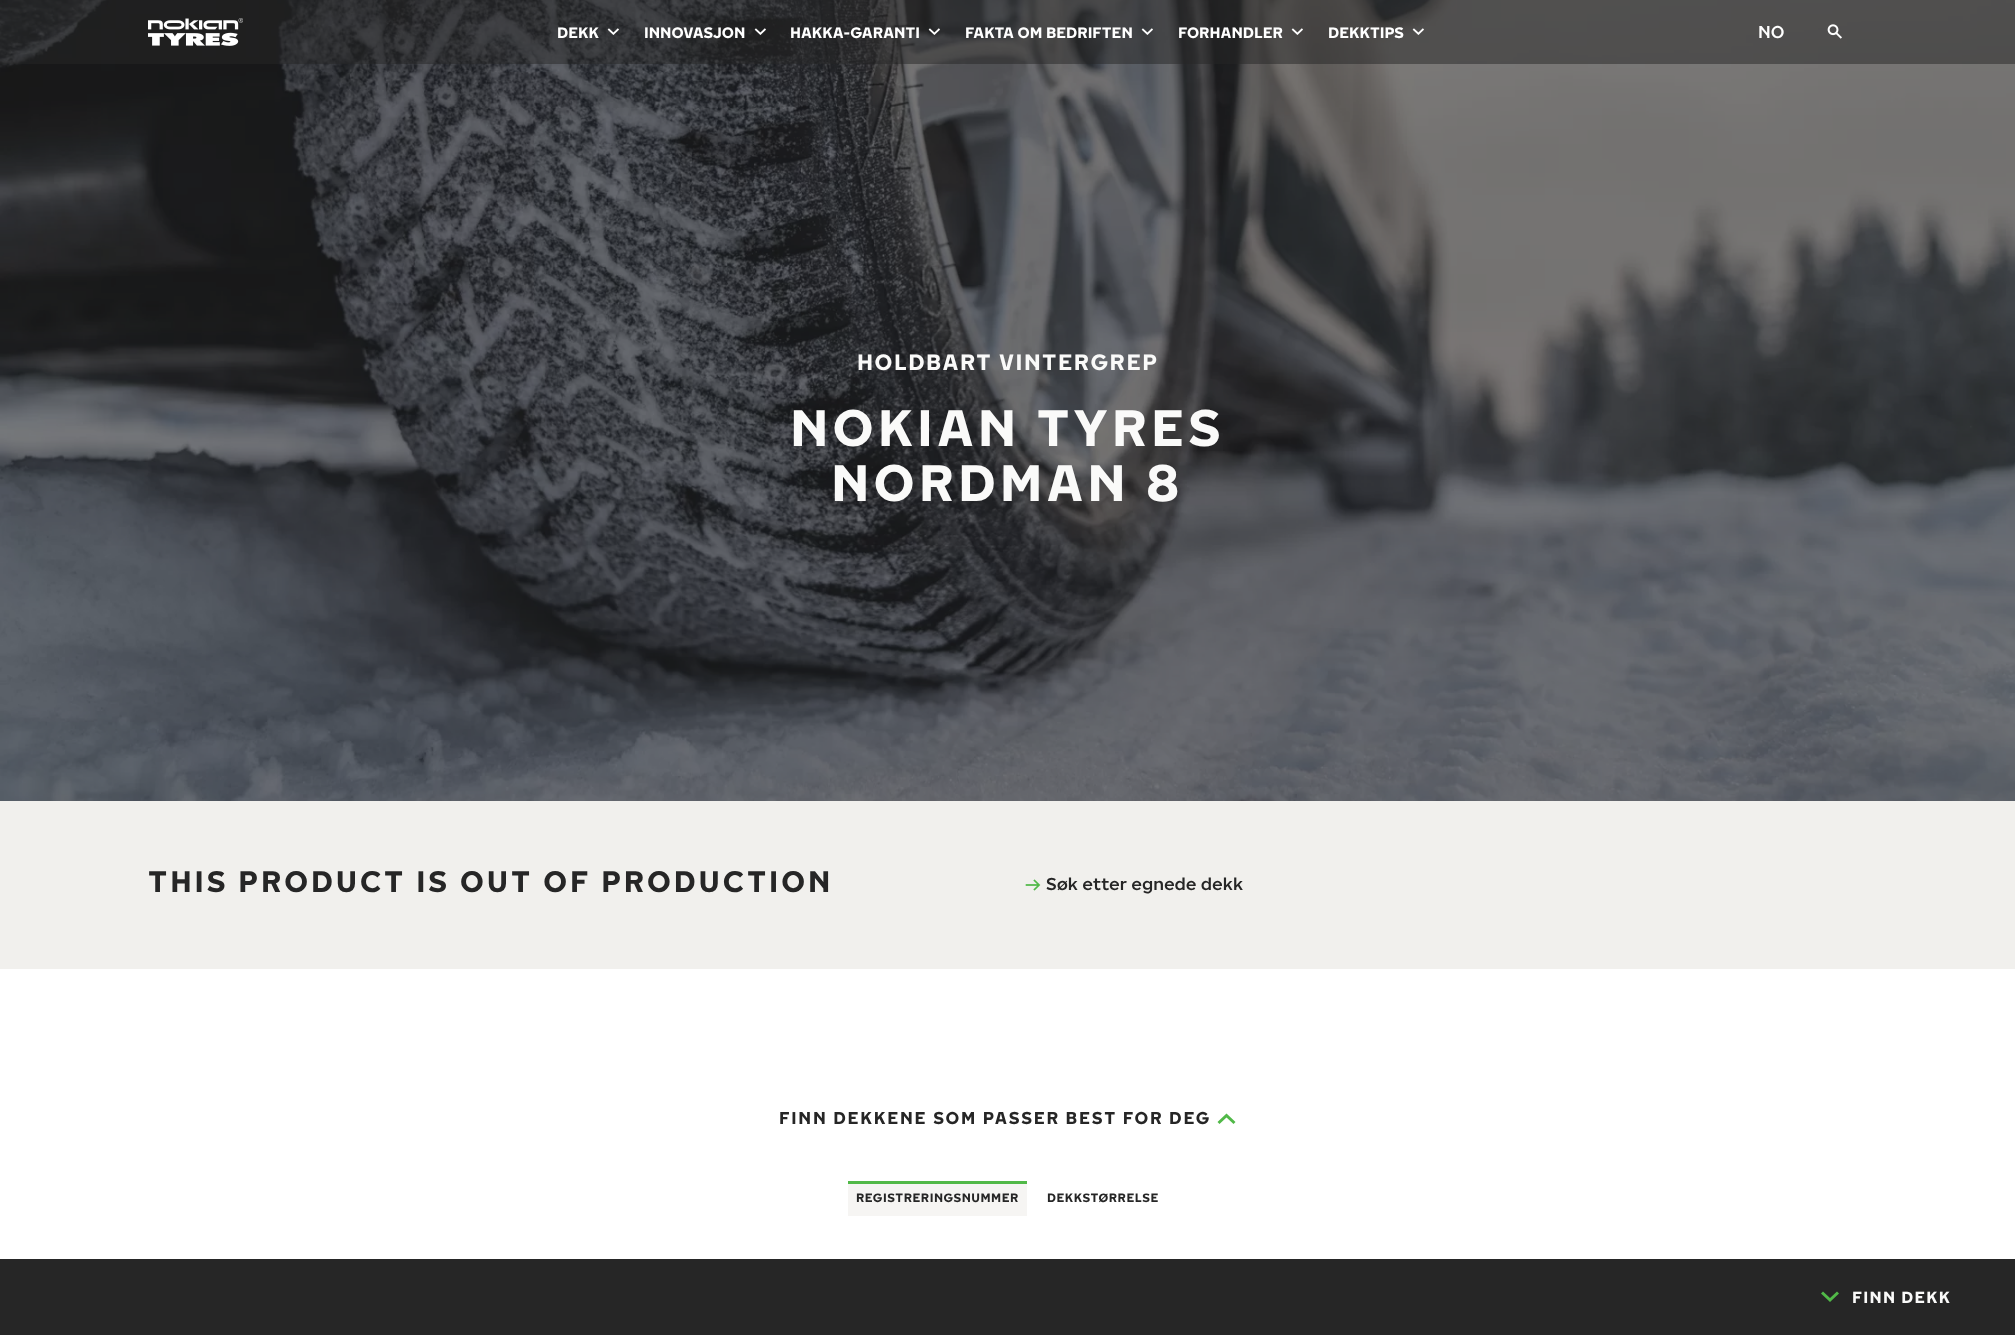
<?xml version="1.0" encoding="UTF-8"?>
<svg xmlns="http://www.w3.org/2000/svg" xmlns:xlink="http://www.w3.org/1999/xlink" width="2015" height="1335">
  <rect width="100%" height="100%" fill="#ffffff" />
  <image x="0" y="0" width="2015" height="801" xlink:href="image9.png" />
  <rect width="2015" height="64" fill="#262626" fill-opacity="0.5" />
  <image x="148" y="18" width="95" height="28" xlink:href="image1.png" />
  <image x="607" y="28" width="12" height="7" xlink:href="image2.png" />
  <image x="754" y="28" width="12" height="7" xlink:href="image3.png" />
  <image x="928" y="28" width="12" height="7" xlink:href="image4.png" />
  <image x="1141" y="28" width="12" height="7" xlink:href="image5.png" />
  <image x="1291" y="28" width="12" height="7" xlink:href="image6.png" />
  <image x="1412" y="28" width="12" height="7" xlink:href="image7.png" />
  <image x="1827" y="24" width="15" height="15" xlink:href="image8.png" />
  <rect y="801" width="2015" height="168" fill="#f1f0ed" />
  <image x="1025" y="879" width="16" height="12" xlink:href="image10.png" />
  <path d="M 1226.5 1113.5 l 9 8.5 l -2 2 l -7 -6.5 l -7 6.5 l -2 -2 z" fill="#51b948" />
  <rect x="848" y="1184" width="179" height="32" fill="#f6f5f3" />
  <rect x="848" y="1181" width="179" height="3" fill="#51b948" />
  <rect y="1259" width="2015" height="76" fill="#262626" />
  <path d="M 1830 1302 l -9 -8.5 l 2 -2 l 7 6.5 l 7 -6.5 l 2 2 z" fill="#51b948" />
  <text x="557" y="38" style="font-family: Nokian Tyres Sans; font-size: 15px; font-weight: bold; fill: #ffffff">DEKK</text>
  <text x="644" y="38" style="font-family: Nokian Tyres Sans; font-size: 15px; font-weight: bold; fill: #ffffff">INNOVASJON</text>
  <text x="790" y="38" style="font-family: Nokian Tyres Sans; font-size: 15px; font-weight: bold; fill: #ffffff">HAKKA-GARANTI</text>
  <text x="965" y="38" style="font-family: Nokian Tyres Sans; font-size: 15px; font-weight: bold; fill: #ffffff">FAKTA OM BEDRIFTEN</text>
  <text x="1178" y="38" style="font-family: Nokian Tyres Sans; font-size: 15px; font-weight: bold; fill: #ffffff">FORHANDLER</text>
  <text x="1328" y="38" style="font-family: Nokian Tyres Sans; font-size: 15px; font-weight: bold; fill: #ffffff">DEKKTIPS</text>
  <text x="1758" y="38" style="font-family: Nokian Tyres Sans; font-size: 16.95px; font-weight: 500; fill: #ffffff">NO</text>
  <text x="857" y="370" style="font-family: Nokian Tyres Sans; font-size: 22px; font-weight: bold; letter-spacing: 1.5px; fill: #fafaf9">HOLDBART VINTERGREP</text>
  <text x="790" y="446" style="font-family: Nokian Tyres Sans; font-size: 50.75px; font-weight: bold; letter-spacing: 4px; fill: #fafaf9">NOKIAN TYRES</text>
  <text x="831" y="501" style="font-family: Nokian Tyres Sans; font-size: 50.75px; font-weight: bold; letter-spacing: 4px; fill: #fafaf9">NORDMAN 8</text>
  <text x="148" y="892" style="font-family: Nokian Tyres Sans; font-size: 29.4px; font-weight: bold; letter-spacing: 2.95px; fill: #262626">THIS PRODUCT IS OUT OF PRODUCTION</text>
  <text x="1046" y="890" style="font-family: Nokian Tyres Sans; font-size: 16.95px; font-weight: 500; fill: #262626">Søk etter egnede dekk</text>
  <text x="779" y="1124" style="font-family: Nokian Tyres Sans; font-size: 16.95px; font-weight: bold; letter-spacing: 1.7px; fill: #262626">FINN DEKKENE SOM PASSER BEST FOR DEG</text>
  <text x="856" y="1202" style="font-family: Nokian Tyres Sans; font-size: 12px; font-weight: bold; letter-spacing: 0.5px; fill: #262626">REGISTRERINGSNUMMER</text>
  <text x="1047" y="1202" style="font-family: Nokian Tyres Sans; font-size: 12px; font-weight: bold; letter-spacing: 0.5px; fill: #262626">DEKKSTØRRELSE</text>
  <text x="1852" y="1303" style="font-family: Nokian Tyres Sans; font-size: 16px; font-weight: bold; letter-spacing: 1.25px; fill: #fafaf9">FINN DEKK</text>
</svg>
